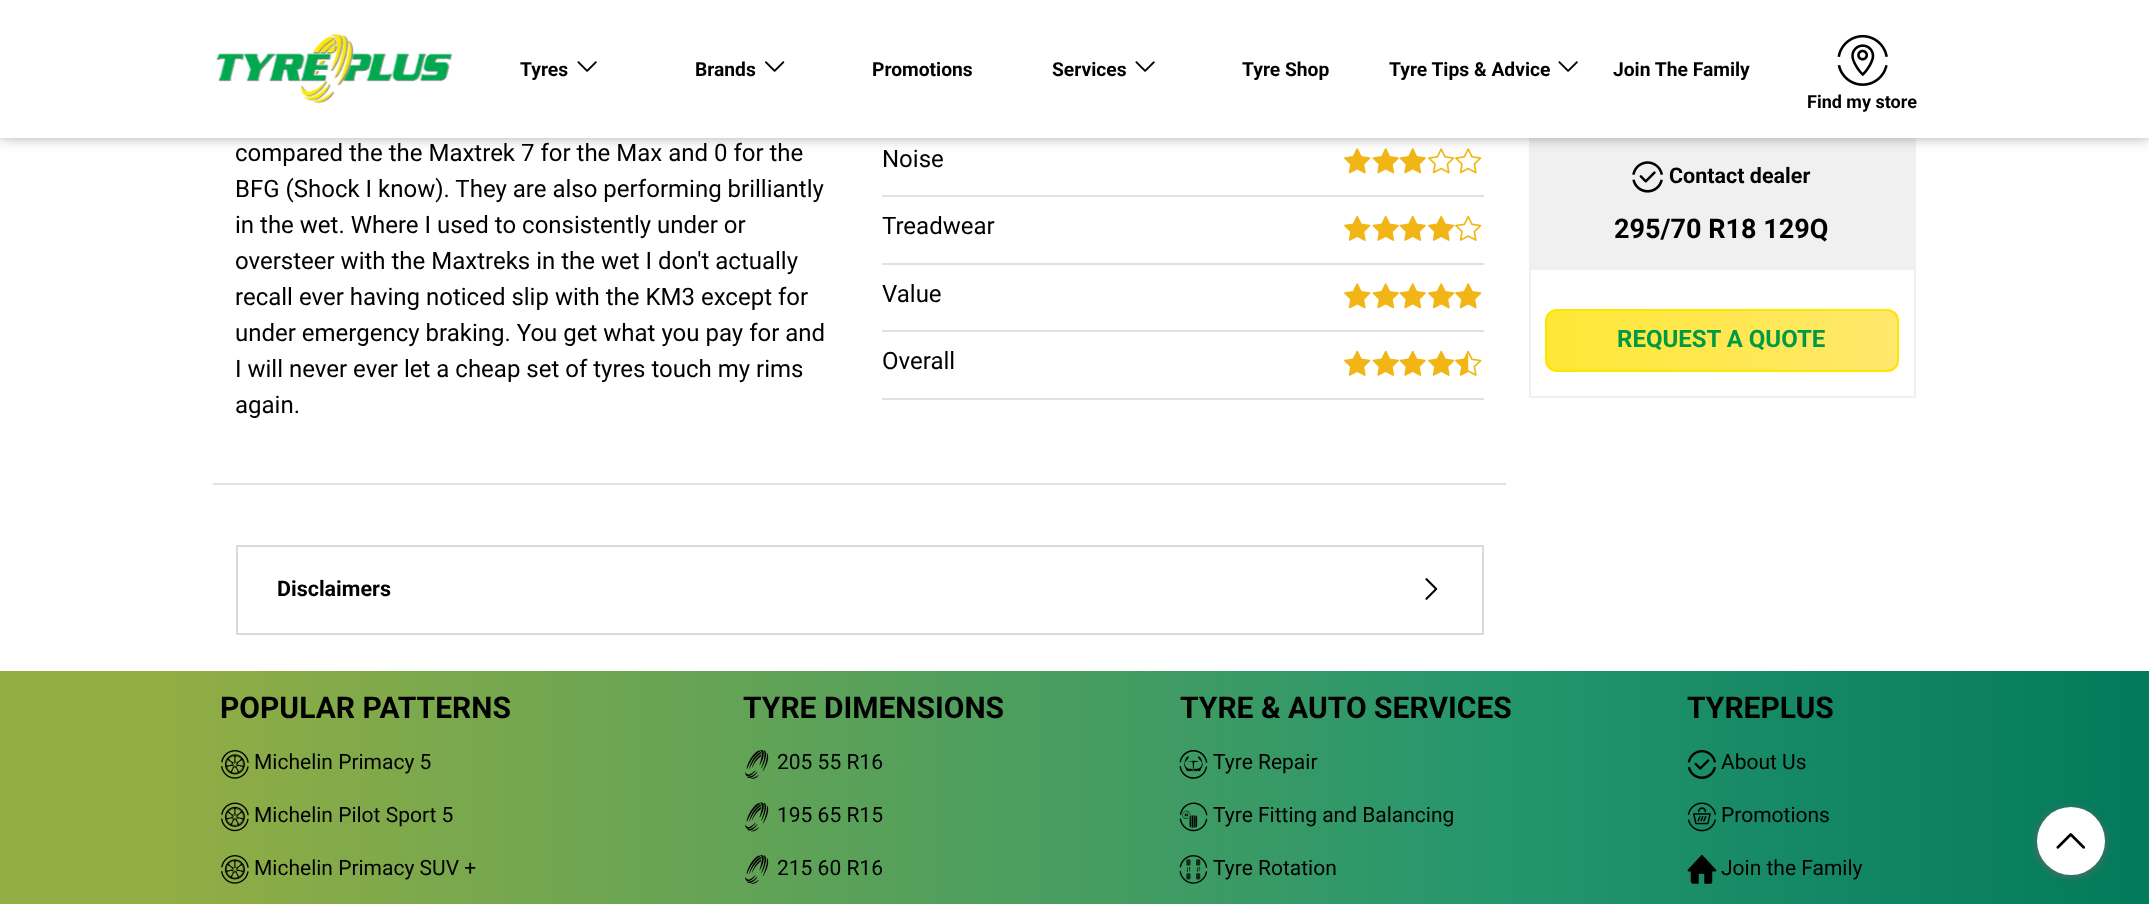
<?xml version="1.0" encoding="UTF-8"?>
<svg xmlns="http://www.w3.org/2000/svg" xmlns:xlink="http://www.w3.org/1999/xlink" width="2149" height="904">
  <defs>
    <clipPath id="clip1"><rect x="1545" y="309" width="354" height="63" rx="12" /></clipPath>
    <linearGradient id="g1" gradientUnits="userSpaceOnUse" x1="1196" y1="341" x2="1898" y2="340"><stop offset="0" stop-color="#ffe600" /><stop offset="1" stop-color="#ffe86c" /></linearGradient>
    <linearGradient id="g2" gradientUnits="userSpaceOnUse" x1="0" y1="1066" x2="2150" y2="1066"><stop offset="0.08" stop-color="#91ad44" /><stop offset="0.69" stop-color="#26966d" /><stop offset="1" stop-color="#027a5b" /></linearGradient>
  </defs>
  <rect width="100%" height="100%" fill="#ffffff" />
  <image x="1344" y="148" width="27" height="26" xlink:href="image5.png" />
  <image x="1372" y="148" width="27" height="26" xlink:href="image6.png" />
  <image x="1399" y="148" width="27" height="26" xlink:href="image6.png" />
  <image x="1428" y="148" width="27" height="26" xlink:href="image7.png" />
  <image x="1455" y="148" width="27" height="26" xlink:href="image7.png" />
  <rect x="1530" y="139" width="385" height="258" fill="none" stroke="#f0f0f0" stroke-width="2" />
  <rect x="1531" y="140" width="383" height="130" fill="#f0f0f0" />
  <rect y="-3" width="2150" height="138" fill="#030303" fill-opacity="0.5" filter="blur(7.5px)" />
  <rect width="2149" height="138" fill="#ffffff" />
  <image x="216" y="34" width="237" height="70" xlink:href="image1.png" />
  <image x="577" y="61" width="20" height="11" xlink:href="image2.png" />
  <image x="765" y="61" width="20" height="11" xlink:href="image3.png" />
  <image x="1135" y="61" width="20" height="11" xlink:href="image2.png" />
  <image x="1558" y="61" width="20" height="11" xlink:href="image2.png" />
  <image x="1837" y="34" width="51" height="52" xlink:href="image4.png" />
  <rect x="882" y="195" width="602" height="2" fill="#dee2e6" />
  <rect x="882" y="263" width="602" height="2" fill="#dee2e6" />
  <image x="1344" y="215" width="27" height="26" xlink:href="image8.png" />
  <image x="1372" y="215" width="27" height="26" xlink:href="image9.png" />
  <image x="1399" y="215" width="27" height="26" xlink:href="image9.png" />
  <image x="1428" y="215" width="27" height="26" xlink:href="image8.png" />
  <image x="1455" y="215" width="27" height="26" xlink:href="image10.png" />
  <rect x="882" y="330" width="602" height="2" fill="#dee2e6" />
  <image x="1344" y="283" width="27" height="26" xlink:href="image5.png" />
  <image x="1372" y="283" width="27" height="26" xlink:href="image6.png" />
  <image x="1399" y="283" width="27" height="26" xlink:href="image6.png" />
  <image x="1428" y="283" width="27" height="26" xlink:href="image5.png" />
  <image x="1455" y="283" width="27" height="26" xlink:href="image5.png" />
  <rect x="882" y="398" width="602" height="2" fill="#dee2e6" />
  <image x="1344" y="350" width="27" height="26" xlink:href="image8.png" />
  <image x="1372" y="350" width="27" height="26" xlink:href="image9.png" />
  <image x="1399" y="350" width="27" height="26" xlink:href="image9.png" />
  <image x="1428" y="350" width="27" height="26" xlink:href="image8.png" />
  <image x="1455" y="350" width="27" height="26" xlink:href="image11.png" />
  <rect x="213" y="483" width="1293" height="2" fill="#dee2e6" />
  <rect x="237" y="546" width="1246" height="88" fill="none" stroke="#dadada" stroke-width="2" />
  <image x="1425" y="578" width="13" height="22" xlink:href="image12.png" />
  <image x="1632" y="161" width="31" height="32" xlink:href="image13.png" />
  <g clip-path="url(#clip1)">
    <path d="M 1557 309 h 341 v 63 h -341 c -6.5 0 -12 -5.5 -12 -12 v -39 c 0 -6.5 5.5 -12 12 -12 z" fill="url(#g1)" />
  </g>
  <rect x="1546" y="310" width="352" height="61" rx="11" fill="none" stroke="#ffe500" stroke-width="2" />
  <rect y="671" width="2149" height="233" fill="url(#g2)" />
  <image x="221" y="750" width="28" height="29" xlink:href="image14.png" />
  <image x="221" y="802" width="28" height="30" xlink:href="image15.png" />
  <image x="221" y="855" width="28" height="29" xlink:href="image14.png" />
  <image x="745" y="750" width="24" height="29" xlink:href="image16.png" />
  <image x="745" y="802" width="24" height="30" xlink:href="image17.png" />
  <image x="745" y="855" width="24" height="29" xlink:href="image16.png" />
  <image x="1179" y="750" width="29" height="29" xlink:href="image18.png" />
  <image x="1179" y="802" width="29" height="30" xlink:href="image19.png" />
  <image x="1179" y="855" width="29" height="29" xlink:href="image20.png" />
  <image x="1687" y="750" width="29" height="29" xlink:href="image21.png" />
  <image x="1687" y="802" width="29" height="30" xlink:href="image22.png" />
  <image x="1687" y="855" width="30" height="29" xlink:href="image23.png" />
  <rect x="2037" y="809" width="68" height="67" rx="33.5" fill="#666666" filter="blur(4px)" />
  <circle cx="2071" cy="841" r="34" fill="#ffffff" />
  <image x="2056" y="833" width="29" height="16" xlink:href="image24.png" />
  <text x="520" y="76" style="font-family: Roboto; font-size: 19.25px; font-weight: bold; fill: #000000">Tyres</text>
  <text x="695" y="76" style="font-family: Roboto; font-size: 19.25px; font-weight: bold; fill: #000000">Brands</text>
  <text x="872" y="76" style="font-family: Roboto; font-size: 19.25px; font-weight: bold; fill: #000000">Promotions</text>
  <text x="1052" y="76" style="font-family: Roboto; font-size: 19.25px; font-weight: bold; fill: #000000">Services</text>
  <text x="1242" y="76" style="font-family: Roboto; font-size: 19.25px; font-weight: bold; fill: #000000">Tyre Shop</text>
  <text x="1389" y="76" style="font-family: Roboto; font-size: 19.25px; font-weight: bold; fill: #000000">Tyre Tips &amp; Advice</text>
  <text x="1613" y="76" style="font-family: Roboto; font-size: 19.25px; font-weight: bold; fill: #000000">Join The Family</text>
  <text x="1807" y="108" style="font-family: Roboto; font-size: 18px; font-weight: bold; fill: #000000">Find my store</text>
  <text x="235" y="161" style="font-family: Roboto; font-size: 24px; fill: #000000">compared the the Maxtrek 7 for the Max and 0 for the</text>
  <text x="235" y="197" style="font-family: Roboto; font-size: 24px; fill: #000000">BFG (Shock I know). They are also performing brilliantly</text>
  <text x="235" y="233" style="font-family: Roboto; font-size: 24px; fill: #000000">in the wet. Where I used to consistently under or</text>
  <text x="235" y="269" style="font-family: Roboto; font-size: 24px; fill: #000000">oversteer with the Maxtreks in the wet I don't actually</text>
  <text x="235" y="305" style="font-family: Roboto; font-size: 24px; fill: #000000">recall ever having noticed slip with the KM3 except for</text>
  <text x="235" y="341" style="font-family: Roboto; font-size: 24px; fill: #000000">under emergency braking. You get what you pay for and</text>
  <text x="235" y="377" style="font-family: Roboto; font-size: 24px; fill: #000000">I will never ever let a cheap set of tyres touch my rims</text>
  <text x="235" y="413" style="font-family: Roboto; font-size: 24px; fill: #000000">again.</text>
  <text x="882" y="167" style="font-family: Roboto; font-size: 24px; fill: #000000">Noise</text>
  <text x="882" y="234" style="font-family: Roboto; font-size: 24px; fill: #000000">Treadwear</text>
  <text x="882" y="302" style="font-family: Roboto; font-size: 24px; fill: #000000">Value</text>
  <text x="882" y="369" style="font-family: Roboto; font-size: 24px; fill: #000000">Overall</text>
  <text x="277" y="596" style="font-family: Roboto; font-size: 21.5px; font-weight: bold; fill: #000000">Disclaimers</text>
  <text x="1669" y="183" style="font-family: Roboto; font-size: 21.5px; font-weight: bold; fill: #000000">Contact dealer</text>
  <text x="1614" y="238" style="font-family: Roboto; font-size: 27px; font-weight: bold; fill: #000000">295/70 R18 129Q</text>
  <text x="1617" y="347" style="font-family: Roboto; font-size: 24px; font-weight: bold; fill: #009944">REQUEST A QUOTE</text>
  <text x="220" y="718" style="font-family: Roboto; font-size: 30px; font-weight: bold; fill: #000000">POPULAR PATTERNS</text>
  <text x="254" y="769" style="font-family: Roboto; font-size: 21px; fill: #000000">Michelin Primacy 5</text>
  <text x="254" y="822" style="font-family: Roboto; font-size: 21px; fill: #000000">Michelin Pilot Sport 5</text>
  <text x="254" y="875" style="font-family: Roboto; font-size: 21px; fill: #000000">Michelin Primacy SUV +</text>
  <text x="743" y="718" style="font-family: Roboto; font-size: 30px; font-weight: bold; fill: #000000">TYRE DIMENSIONS</text>
  <text x="777" y="769" style="font-family: Roboto; font-size: 21px; fill: #000000">205 55 R16</text>
  <text x="777" y="822" style="font-family: Roboto; font-size: 21px; fill: #000000">195 65 R15</text>
  <text x="777" y="875" style="font-family: Roboto; font-size: 21px; fill: #000000">215 60 R16</text>
  <text x="1180" y="718" style="font-family: Roboto; font-size: 30px; font-weight: bold; fill: #000000">TYRE &amp; AUTO SERVICES</text>
  <text x="1213" y="769" style="font-family: Roboto; font-size: 21px; fill: #000000">Tyre Repair</text>
  <text x="1213" y="822" style="font-family: Roboto; font-size: 21px; fill: #000000">Tyre Fitting and Balancing</text>
  <text x="1213" y="875" style="font-family: Roboto; font-size: 21px; fill: #000000">Tyre Rotation</text>
  <text x="1687" y="718" style="font-family: Roboto; font-size: 30px; font-weight: bold; fill: #000000">TYREPLUS</text>
  <text x="1721" y="769" style="font-family: Roboto; font-size: 21px; fill: #000000">About Us</text>
  <text x="1721" y="822" style="font-family: Roboto; font-size: 21px; fill: #000000">Promotions</text>
  <text x="1721" y="875" style="font-family: Roboto; font-size: 21px; fill: #000000">Join the Family</text>
</svg>
